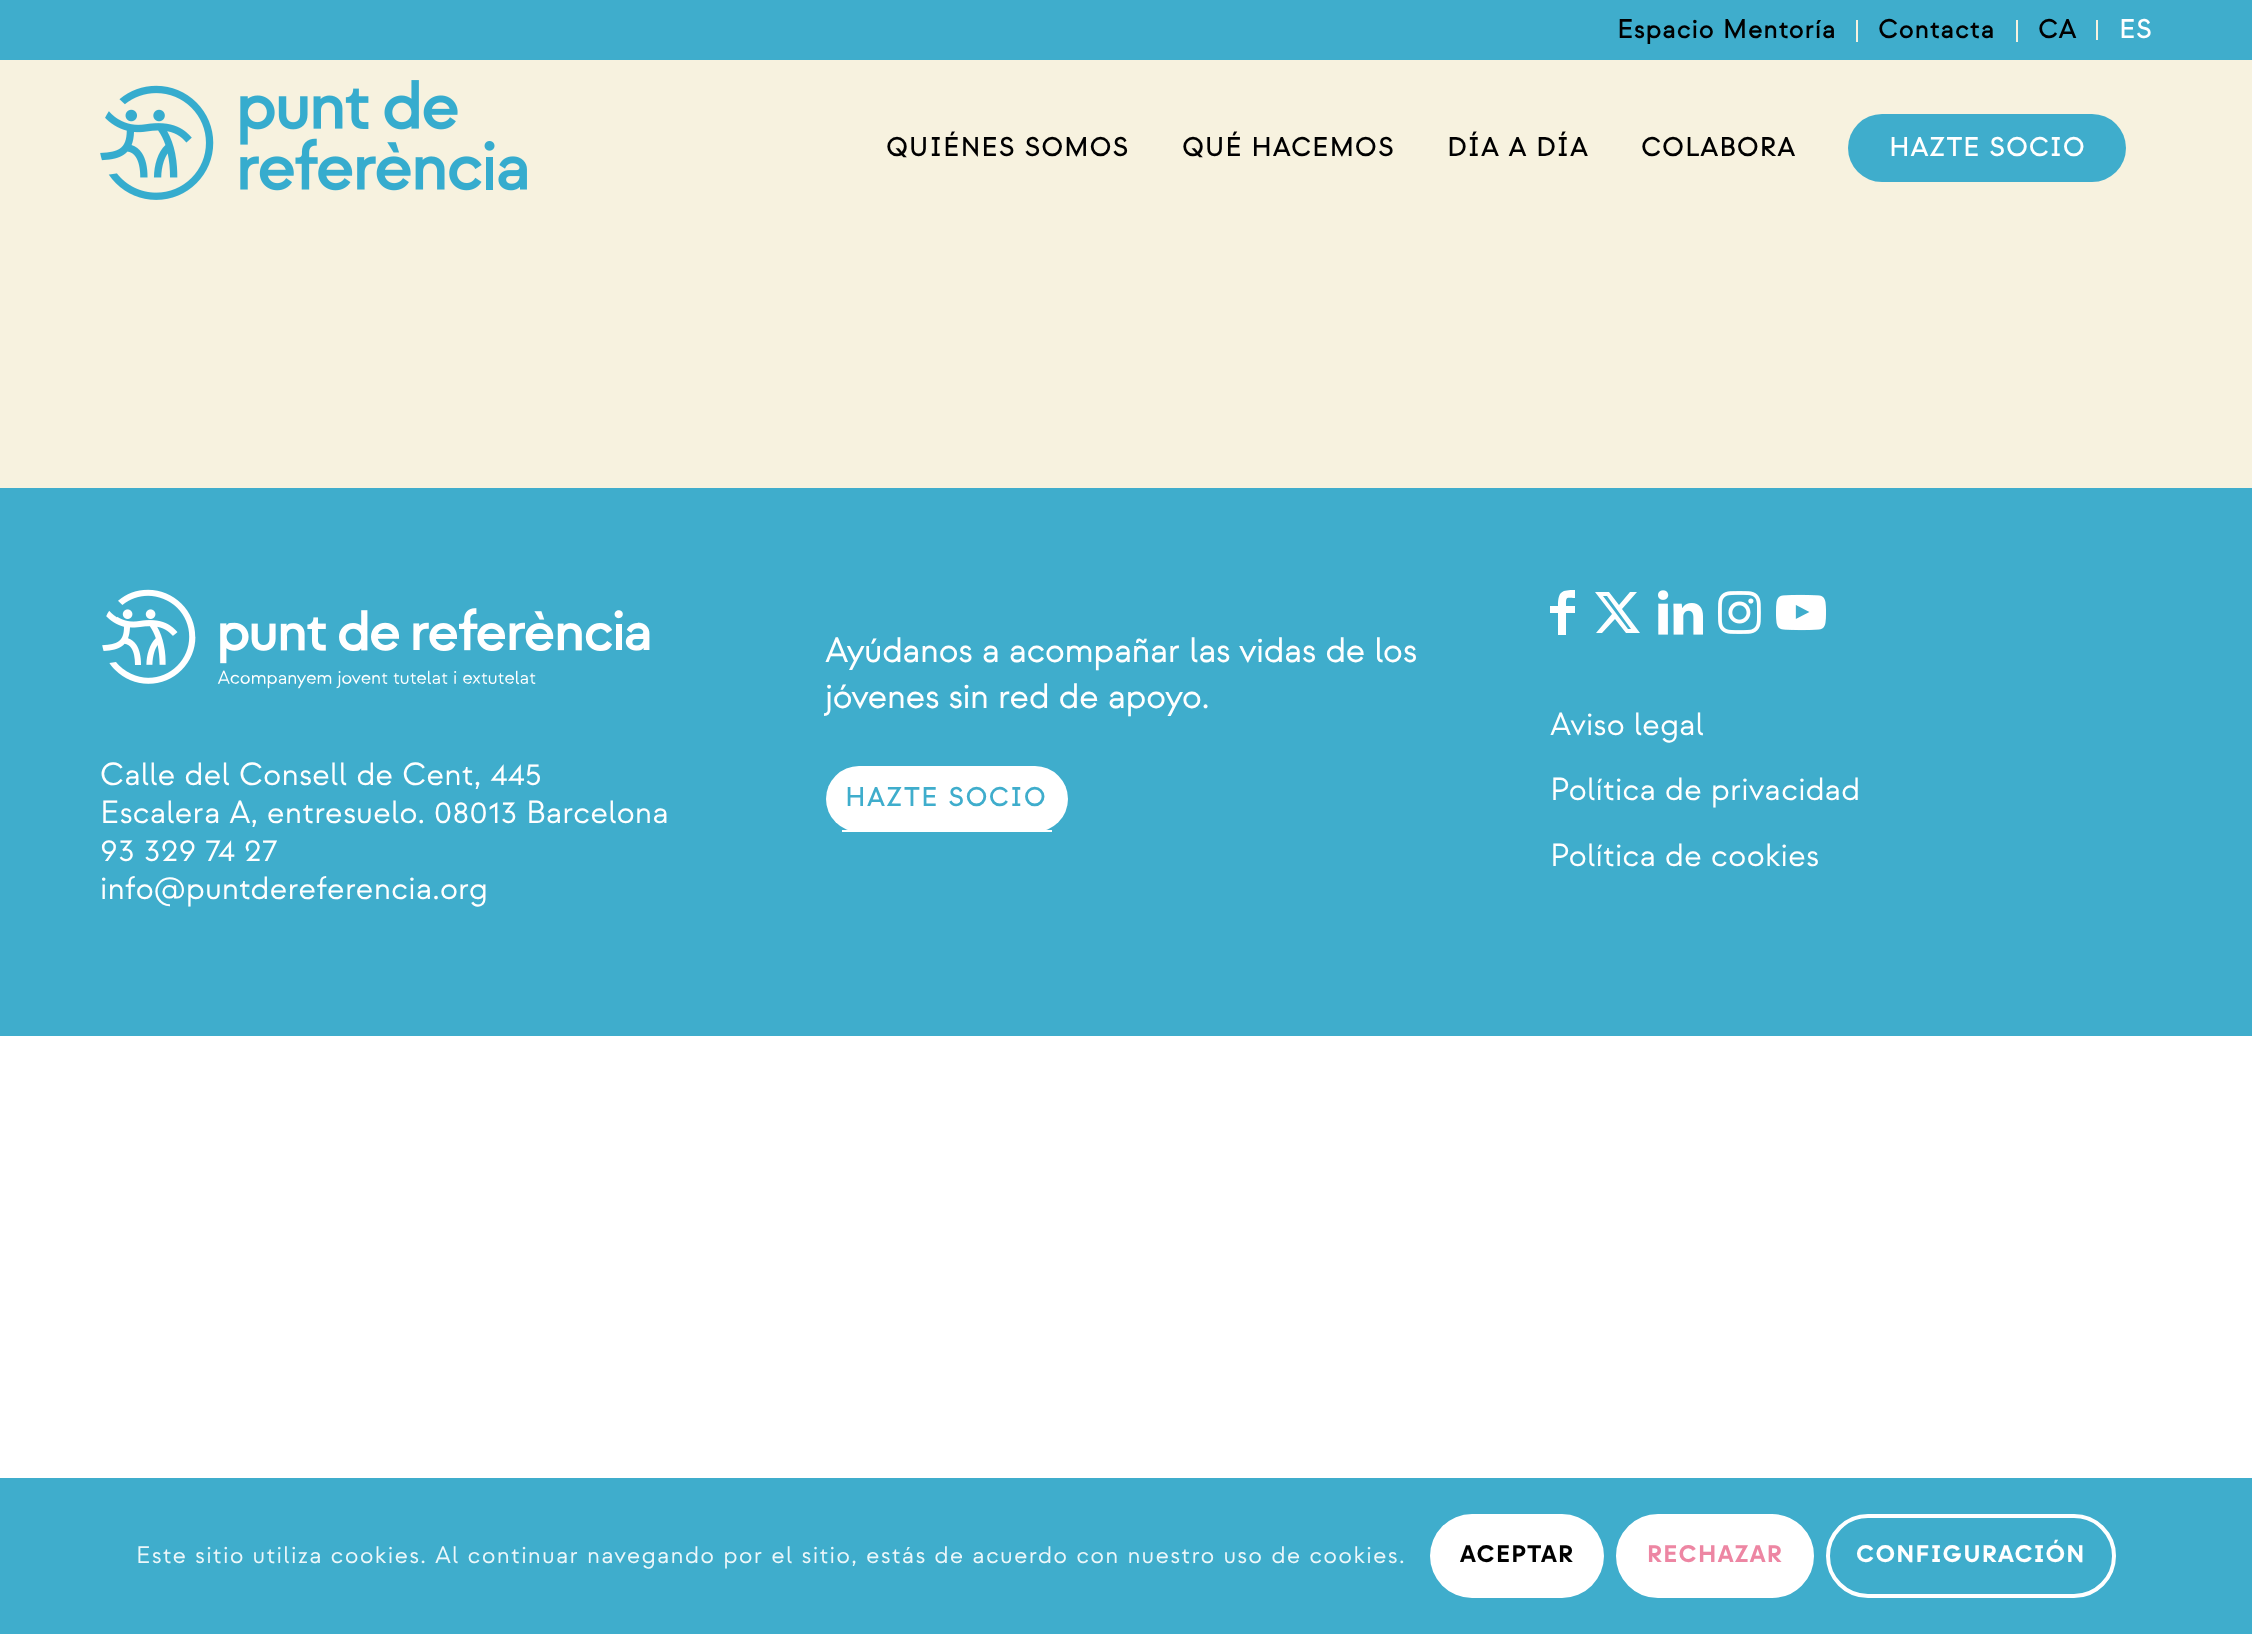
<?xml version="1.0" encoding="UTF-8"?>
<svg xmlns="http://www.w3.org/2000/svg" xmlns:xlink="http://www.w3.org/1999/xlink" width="2252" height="1634">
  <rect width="100%" height="100%" fill="#ffffff" />
  <rect y="60" width="2252" height="428" fill="#f7f2df" />
  <rect width="2252" height="60" fill="#3fadcc" />
  <rect x="1856" y="20" width="2" height="22" fill="#f7f2df" />
  <rect x="2016" y="20" width="2" height="22" fill="#f7f2df" />
  <rect x="2096" y="20" width="2" height="20" fill="#f7f2df" />
  <image x="100" y="80" width="427" height="120" xlink:href="image1.png" />
  <rect x="1848" y="114" width="278" height="68" rx="34" fill="#3fadcc" />
  <rect y="488" width="2252" height="548" fill="#3fadcc" />
  <image x="102" y="589" width="548" height="100" xlink:href="image2.png" />
  <rect x="826" y="766" width="242" height="66" rx="33" fill="#ffffff" />
  <rect x="842" y="830" width="210" height="2" fill="#ffffff" />
  <path d="M 1575 598 c -9 0 -9 -2 -9 8 h 9 v 7 h -9 v 22 h -8 v -22 h -8 v -7 h 8 c 0 -15 4 -16 17 -16 z" fill="#ffffff" />
  <path d="M 1630 592 h 7 l -15 17 l 18 24 h -14 l -11 -14 l -13 14 h -6 l 16 -19 l -17 -22 h 14 l 10 13 z m -2 37 h 3 l -24 -33 h -4 z" fill="#ffffff" />
  <image x="1658" y="590" width="45" height="45" xlink:href="image3.png" />
  <image x="1718" y="591" width="43" height="43" xlink:href="image4.png" />
  <image x="1776" y="594" width="50" height="37" xlink:href="image5.png" />
  <rect y="1478" width="2252" height="156" fill="#3fadcc" />
  <rect x="1430" y="1514" width="174" height="84" rx="42" fill="#ffffff" />
  <rect x="1618" y="1516" width="194" height="80" rx="40" fill="#ffffff" stroke="#ffffff" stroke-width="4" />
  <rect x="1828" y="1516" width="286" height="80" rx="40" fill="none" stroke="#ffffff" stroke-width="4" />
  <text x="1617" y="38" style="font-family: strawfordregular; font-size: 26px; font-weight: bold; letter-spacing: 1px; fill: #000000">Espacio Mentoría</text>
  <text x="1878" y="38" style="font-family: strawfordregular; font-size: 26px; font-weight: bold; letter-spacing: 1px; fill: #000000">Contacta</text>
  <text x="2038" y="38" style="font-family: strawfordregular; font-size: 26px; font-weight: bold; letter-spacing: 1px; fill: #000000">CA</text>
  <text x="2119" y="38" style="font-family: strawfordregular; font-size: 26px; font-weight: bold; letter-spacing: 1px; fill: #ffffff">ES</text>
  <text x="886" y="156" style="font-family: strawfordregular; font-size: 26px; font-weight: bold; letter-spacing: 1.5px; fill: #000000">QUIÉNES SOMOS</text>
  <text x="1182" y="156" style="font-family: strawfordregular; font-size: 26px; font-weight: bold; letter-spacing: 1.5px; fill: #000000">QUÉ HACEMOS</text>
  <text x="1447" y="156" style="font-family: strawfordregular; font-size: 26px; font-weight: bold; letter-spacing: 1.5px; fill: #000000">DÍA A DÍA</text>
  <text x="1641" y="156" style="font-family: strawfordregular; font-size: 26px; font-weight: bold; letter-spacing: 1.5px; fill: #000000">COLABORA</text>
  <text x="1889" y="156" style="font-family: strawfordregular; font-size: 26px; font-weight: bold; letter-spacing: 1.5px; fill: #ffffff">HAZTE SOCIO</text>
  <text x="100" y="785" style="font-family: strawfordregular; font-size: 32px; fill: #ffffff">Calle del Consell de Cent, 445</text>
  <text x="100" y="823" style="font-family: strawfordregular; font-size: 32px; fill: #ffffff">Escalera A, entresuelo. 08013 Barcelona</text>
  <text x="100" y="861" style="font-family: strawfordregular; font-size: 32px; fill: #ffffff">93 329 74 27</text>
  <text x="100" y="899" style="font-family: strawfordregular; font-size: 32px; fill: #ffffff">info@puntdereferencia.org</text>
  <text x="825" y="662" style="font-family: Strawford; font-size: 34px; font-weight: bold; fill: #ffffff">Ayúdanos a acompañar las vidas de los</text>
  <text x="825" y="708" style="font-family: Strawford; font-size: 34px; font-weight: bold; fill: #ffffff">jóvenes sin red de apoyo.</text>
  <text x="845" y="806" style="font-family: strawfordregular; font-size: 26px; font-weight: bold; letter-spacing: 2px; fill: #3fadcc">HAZTE SOCIO</text>
  <text x="1550" y="735" style="font-family: strawfordregular; font-size: 32px; fill: #ffffff">Aviso legal</text>
  <text x="1550" y="800" style="font-family: strawfordregular; font-size: 32px; fill: #ffffff">Política de privacidad</text>
  <text x="1550" y="866" style="font-family: strawfordregular; font-size: 32px; fill: #ffffff">Política de cookies</text>
  <text x="136" y="1563" style="font-family: strawfordregular; font-size: 24px; letter-spacing: 1.2px; fill: #ecf7fa">Este sitio utiliza cookies. Al continuar navegando por el sitio, estás de acuerdo con nuestro uso de cookies.</text>
  <text x="1460" y="1562" style="font-family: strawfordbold; font-size: 24px; font-weight: bold; letter-spacing: 1.2px; fill: #000000">ACEPTAR</text>
  <text x="1647" y="1562" style="font-family: strawfordbold; font-size: 24px; font-weight: bold; letter-spacing: 1.2px; fill: #ed86a3">RECHAZAR</text>
  <text x="1856" y="1562" style="font-family: strawfordbold; font-size: 24px; font-weight: bold; letter-spacing: 1.2px; fill: #ffffff">CONFIGURACIÓN</text>
</svg>
